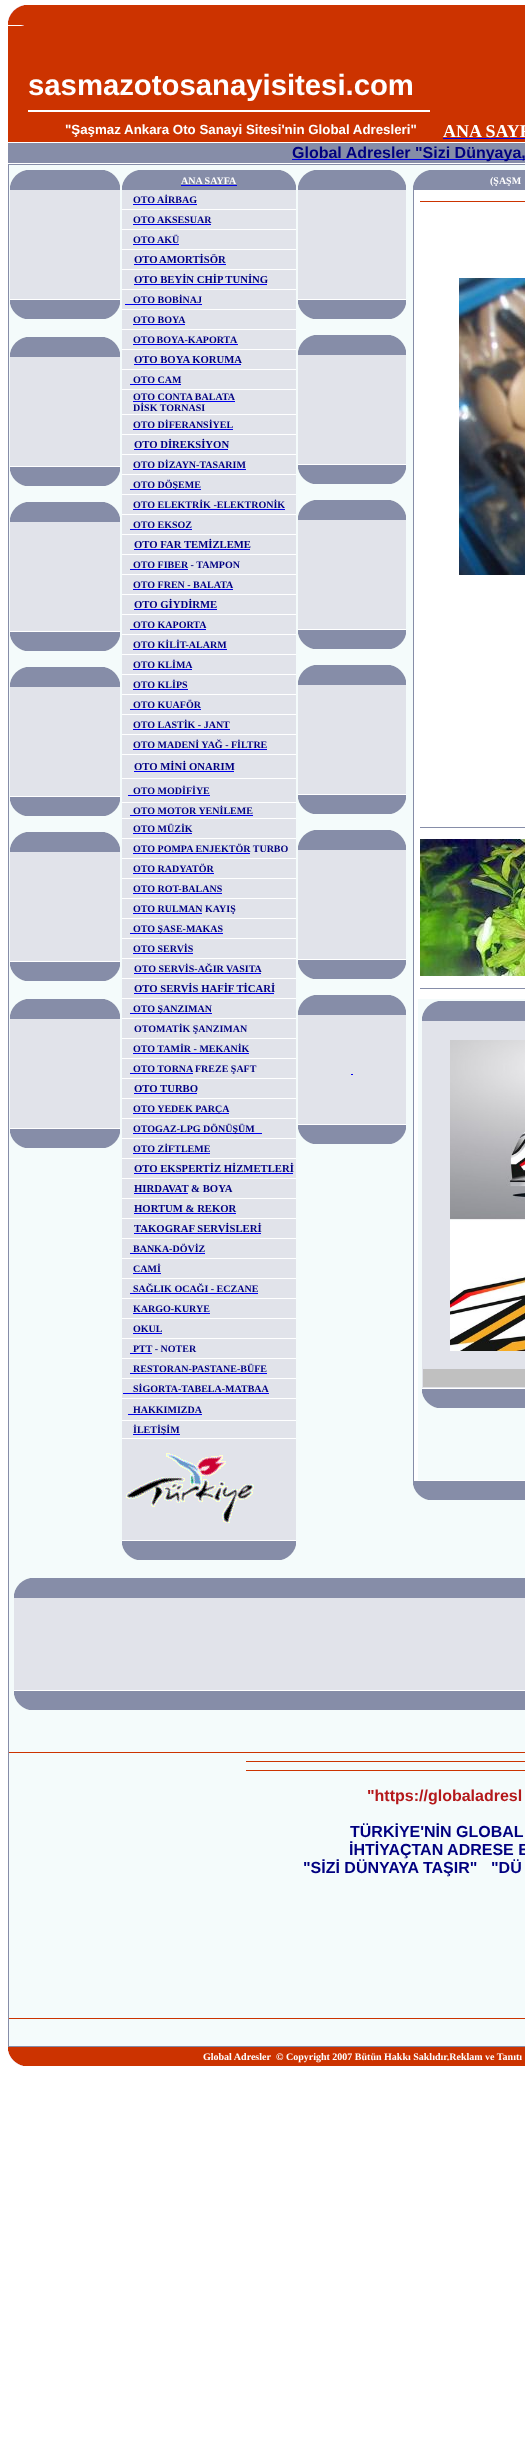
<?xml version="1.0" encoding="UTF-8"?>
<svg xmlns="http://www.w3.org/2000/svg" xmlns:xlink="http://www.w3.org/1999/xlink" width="525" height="2455">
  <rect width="100%" height="100%" fill="#ffffff" />
  <rect x="8" y="26" width="20" height="116" fill="#cc3300" />
  <image x="8" y="5" width="20" height="21" xlink:href="image1.png" />
  <rect x="28" y="5" width="497" height="137" fill="#cc3300" />
  <rect x="28" y="110" width="402" height="2" fill="#ffffff" />
  <rect x="443" y="138" width="82" height="1" fill="#0000ee" />
  <rect x="8" y="143" width="517" height="20" fill="#868da8" />
  <rect x="292" y="159" width="233" height="1" fill="#0000ee" />
  <rect x="8.5" y="164.5" width="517" height="1882" fill="#f4fbfb" stroke="#868da8" />
  <image x="10" y="170" width="20" height="20" xlink:href="image2.png" />
  <rect x="30" y="170" width="70" height="20" fill="#868da8" />
  <image x="100" y="170" width="20" height="20" xlink:href="image3.png" />
  <rect x="10" y="190" width="110" height="109" fill="#e1e3ea" />
  <rect x="10" y="299" width="110" height="1" fill="#ffffff" />
  <image x="10" y="300" width="20" height="19" xlink:href="image4.png" />
  <rect x="30" y="300" width="70" height="19" fill="#868da8" />
  <image x="100" y="300" width="20" height="19" xlink:href="image5.png" />
  <image x="10" y="337" width="20" height="20" xlink:href="image2.png" />
  <rect x="30" y="337" width="70" height="20" fill="#868da8" />
  <image x="100" y="337" width="20" height="20" xlink:href="image3.png" />
  <rect x="10" y="357" width="110" height="109" fill="#e1e3ea" />
  <rect x="10" y="466" width="110" height="1" fill="#ffffff" />
  <image x="10" y="467" width="20" height="19" xlink:href="image4.png" />
  <rect x="30" y="467" width="70" height="19" fill="#868da8" />
  <image x="100" y="467" width="20" height="19" xlink:href="image5.png" />
  <image x="10" y="502" width="20" height="20" xlink:href="image2.png" />
  <rect x="30" y="502" width="70" height="20" fill="#868da8" />
  <image x="100" y="502" width="20" height="20" xlink:href="image3.png" />
  <rect x="10" y="522" width="110" height="109" fill="#e1e3ea" />
  <rect x="10" y="631" width="110" height="1" fill="#ffffff" />
  <image x="10" y="632" width="20" height="19" xlink:href="image4.png" />
  <rect x="30" y="632" width="70" height="19" fill="#868da8" />
  <image x="100" y="632" width="20" height="19" xlink:href="image5.png" />
  <image x="10" y="667" width="20" height="20" xlink:href="image2.png" />
  <rect x="30" y="667" width="70" height="20" fill="#868da8" />
  <image x="100" y="667" width="20" height="20" xlink:href="image3.png" />
  <rect x="10" y="687" width="110" height="109" fill="#e1e3ea" />
  <rect x="10" y="796" width="110" height="1" fill="#ffffff" />
  <image x="10" y="797" width="20" height="19" xlink:href="image4.png" />
  <rect x="30" y="797" width="70" height="19" fill="#868da8" />
  <image x="100" y="797" width="20" height="19" xlink:href="image5.png" />
  <image x="10" y="832" width="20" height="20" xlink:href="image2.png" />
  <rect x="30" y="832" width="70" height="20" fill="#868da8" />
  <image x="100" y="832" width="20" height="20" xlink:href="image3.png" />
  <rect x="10" y="852" width="110" height="109" fill="#e1e3ea" />
  <rect x="10" y="961" width="110" height="1" fill="#ffffff" />
  <image x="10" y="962" width="20" height="19" xlink:href="image4.png" />
  <rect x="30" y="962" width="70" height="19" fill="#868da8" />
  <image x="100" y="962" width="20" height="19" xlink:href="image5.png" />
  <image x="10" y="999" width="20" height="20" xlink:href="image2.png" />
  <rect x="30" y="999" width="70" height="20" fill="#868da8" />
  <image x="100" y="999" width="20" height="20" xlink:href="image3.png" />
  <rect x="10" y="1019" width="110" height="109" fill="#e1e3ea" />
  <rect x="10" y="1128" width="110" height="1" fill="#ffffff" />
  <image x="10" y="1129" width="20" height="19" xlink:href="image4.png" />
  <rect x="30" y="1129" width="70" height="19" fill="#868da8" />
  <image x="100" y="1129" width="20" height="19" xlink:href="image5.png" />
  <image x="122" y="170" width="20" height="20" xlink:href="image2.png" />
  <rect x="142" y="170" width="134" height="20" fill="#868da8" />
  <rect x="181" y="185" width="56" height="1" fill="#0000ee" />
  <image x="276" y="170" width="20" height="20" xlink:href="image3.png" />
  <rect x="122" y="190" width="174" height="19" fill="#e1e3ea" />
  <rect x="122" y="209" width="174" height="1" fill="#ffffff" />
  <rect x="133" y="204" width="64" height="1" fill="#0000ee" />
  <rect x="122" y="210" width="174" height="19" fill="#e1e3ea" />
  <rect x="122" y="229" width="174" height="1" fill="#ffffff" />
  <rect x="133" y="224" width="78" height="1" fill="#0000ee" />
  <rect x="122" y="230" width="174" height="19" fill="#e1e3ea" />
  <rect x="122" y="249" width="174" height="1" fill="#ffffff" />
  <rect x="133" y="244" width="46" height="1" fill="#0000ee" />
  <rect x="122" y="250" width="174" height="19" fill="#e1e3ea" />
  <rect x="122" y="269" width="174" height="1" fill="#ffffff" />
  <rect x="134" y="264" width="92" height="1" fill="#0000ee" />
  <rect x="122" y="270" width="174" height="19" fill="#e1e3ea" />
  <rect x="122" y="289" width="174" height="1" fill="#ffffff" />
  <rect x="134" y="284" width="133" height="1" fill="#0000ee" />
  <rect x="122" y="290" width="174" height="19" fill="#e1e3ea" />
  <rect x="122" y="309" width="174" height="1" fill="#ffffff" />
  <rect x="125" y="304" width="77" height="1" fill="#0000ee" />
  <rect x="122" y="310" width="174" height="19" fill="#e1e3ea" />
  <rect x="122" y="329" width="174" height="1" fill="#ffffff" />
  <rect x="133" y="324" width="52" height="1" fill="#0000ee" />
  <rect x="122" y="330" width="174" height="19" fill="#e1e3ea" />
  <rect x="122" y="349" width="174" height="1" fill="#ffffff" />
  <rect x="133" y="344" width="105" height="1" fill="#0000ee" />
  <rect x="122" y="350" width="174" height="19" fill="#e1e3ea" />
  <rect x="122" y="369" width="174" height="1" fill="#ffffff" />
  <rect x="134" y="364" width="107" height="1" fill="#0000ee" />
  <rect x="122" y="370" width="174" height="19" fill="#e1e3ea" />
  <rect x="122" y="389" width="174" height="1" fill="#ffffff" />
  <rect x="130" y="384" width="51" height="1" fill="#0000ee" />
  <rect x="122" y="390" width="174" height="24" fill="#e1e3ea" />
  <rect x="122" y="414" width="174" height="1" fill="#ffffff" />
  <rect x="133" y="401" width="102" height="1" fill="#0000ee" />
  <rect x="122" y="415" width="174" height="19" fill="#e1e3ea" />
  <rect x="122" y="434" width="174" height="1" fill="#ffffff" />
  <rect x="133" y="429" width="100" height="1" fill="#0000ee" />
  <rect x="122" y="435" width="174" height="19" fill="#e1e3ea" />
  <rect x="122" y="454" width="174" height="1" fill="#ffffff" />
  <rect x="134" y="449" width="94" height="1" fill="#0000ee" />
  <rect x="122" y="455" width="174" height="19" fill="#e1e3ea" />
  <rect x="122" y="474" width="174" height="1" fill="#ffffff" />
  <rect x="133" y="469" width="113" height="1" fill="#0000ee" />
  <rect x="122" y="475" width="174" height="19" fill="#e1e3ea" />
  <rect x="122" y="494" width="174" height="1" fill="#ffffff" />
  <rect x="130" y="489" width="71" height="1" fill="#0000ee" />
  <rect x="122" y="495" width="174" height="19" fill="#e1e3ea" />
  <rect x="122" y="514" width="174" height="1" fill="#ffffff" />
  <rect x="133" y="509" width="152" height="1" fill="#0000ee" />
  <rect x="122" y="515" width="174" height="19" fill="#e1e3ea" />
  <rect x="122" y="534" width="174" height="1" fill="#ffffff" />
  <rect x="130" y="529" width="62" height="1" fill="#0000ee" />
  <rect x="122" y="535" width="174" height="19" fill="#e1e3ea" />
  <rect x="122" y="554" width="174" height="1" fill="#ffffff" />
  <rect x="134" y="549" width="116" height="1" fill="#0000ee" />
  <rect x="122" y="555" width="174" height="19" fill="#e1e3ea" />
  <rect x="122" y="574" width="174" height="1" fill="#ffffff" />
  <rect x="130" y="569" width="58" height="1" fill="#0000ee" />
  <rect x="122" y="575" width="174" height="19" fill="#e1e3ea" />
  <rect x="122" y="594" width="174" height="1" fill="#ffffff" />
  <rect x="133" y="589" width="100" height="1" fill="#0000ee" />
  <rect x="122" y="595" width="174" height="19" fill="#e1e3ea" />
  <rect x="122" y="614" width="174" height="1" fill="#ffffff" />
  <rect x="134" y="609" width="83" height="1" fill="#0000ee" />
  <rect x="122" y="615" width="174" height="19" fill="#e1e3ea" />
  <rect x="122" y="634" width="174" height="1" fill="#ffffff" />
  <rect x="130" y="629" width="76" height="1" fill="#0000ee" />
  <rect x="122" y="635" width="174" height="19" fill="#e1e3ea" />
  <rect x="122" y="654" width="174" height="1" fill="#ffffff" />
  <rect x="133" y="649" width="94" height="1" fill="#0000ee" />
  <rect x="122" y="655" width="174" height="19" fill="#e1e3ea" />
  <rect x="122" y="674" width="174" height="1" fill="#ffffff" />
  <rect x="133" y="669" width="59" height="1" fill="#0000ee" />
  <rect x="122" y="675" width="174" height="19" fill="#e1e3ea" />
  <rect x="122" y="694" width="174" height="1" fill="#ffffff" />
  <rect x="133" y="689" width="55" height="1" fill="#0000ee" />
  <rect x="122" y="695" width="174" height="19" fill="#e1e3ea" />
  <rect x="122" y="714" width="174" height="1" fill="#ffffff" />
  <rect x="130" y="709" width="71" height="1" fill="#0000ee" />
  <rect x="122" y="715" width="174" height="19" fill="#e1e3ea" />
  <rect x="122" y="734" width="174" height="1" fill="#ffffff" />
  <rect x="133" y="729" width="97" height="1" fill="#0000ee" />
  <rect x="122" y="735" width="174" height="19" fill="#e1e3ea" />
  <rect x="122" y="754" width="174" height="1" fill="#ffffff" />
  <rect x="133" y="749" width="134" height="1" fill="#0000ee" />
  <rect x="122" y="755" width="174" height="23" fill="#e1e3ea" />
  <rect x="122" y="778" width="174" height="1" fill="#ffffff" />
  <rect x="134" y="771" width="100" height="1" fill="#0000ee" />
  <rect x="122" y="779" width="174" height="23" fill="#e1e3ea" />
  <rect x="122" y="802" width="174" height="1" fill="#ffffff" />
  <rect x="128" y="795" width="82" height="1" fill="#0000ee" />
  <rect x="122" y="803" width="174" height="15" fill="#e1e3ea" />
  <rect x="122" y="818" width="174" height="1" fill="#ffffff" />
  <rect x="130" y="815" width="123" height="1" fill="#0000ee" />
  <rect x="122" y="819" width="174" height="19" fill="#e1e3ea" />
  <rect x="122" y="838" width="174" height="1" fill="#ffffff" />
  <rect x="133" y="833" width="59" height="1" fill="#0000ee" />
  <rect x="122" y="839" width="174" height="19" fill="#e1e3ea" />
  <rect x="122" y="858" width="174" height="1" fill="#ffffff" />
  <rect x="133" y="853" width="117" height="1" fill="#0000ee" />
  <rect x="122" y="859" width="174" height="19" fill="#e1e3ea" />
  <rect x="122" y="878" width="174" height="1" fill="#ffffff" />
  <rect x="133" y="873" width="81" height="1" fill="#0000ee" />
  <rect x="122" y="879" width="174" height="19" fill="#e1e3ea" />
  <rect x="122" y="898" width="174" height="1" fill="#ffffff" />
  <rect x="133" y="893" width="89" height="1" fill="#0000ee" />
  <rect x="122" y="899" width="174" height="19" fill="#e1e3ea" />
  <rect x="122" y="918" width="174" height="1" fill="#ffffff" />
  <rect x="133" y="913" width="69" height="1" fill="#0000ee" />
  <rect x="122" y="919" width="174" height="19" fill="#e1e3ea" />
  <rect x="122" y="938" width="174" height="1" fill="#ffffff" />
  <rect x="130" y="933" width="93" height="1" fill="#0000ee" />
  <rect x="122" y="939" width="174" height="19" fill="#e1e3ea" />
  <rect x="122" y="958" width="174" height="1" fill="#ffffff" />
  <rect x="133" y="953" width="60" height="1" fill="#0000ee" />
  <rect x="122" y="959" width="174" height="19" fill="#e1e3ea" />
  <rect x="122" y="978" width="174" height="1" fill="#ffffff" />
  <rect x="134" y="973" width="127" height="1" fill="#0000ee" />
  <rect x="122" y="979" width="174" height="19" fill="#e1e3ea" />
  <rect x="122" y="998" width="174" height="1" fill="#ffffff" />
  <rect x="134" y="993" width="140" height="1" fill="#0000ee" />
  <rect x="122" y="999" width="174" height="19" fill="#e1e3ea" />
  <rect x="122" y="1018" width="174" height="1" fill="#ffffff" />
  <rect x="130" y="1013" width="82" height="1" fill="#0000ee" />
  <rect x="122" y="1019" width="174" height="19" fill="#e1e3ea" />
  <rect x="122" y="1038" width="174" height="1" fill="#ffffff" />
  <rect x="122" y="1039" width="174" height="19" fill="#e1e3ea" />
  <rect x="122" y="1058" width="174" height="1" fill="#ffffff" />
  <rect x="133" y="1053" width="116" height="1" fill="#0000ee" />
  <rect x="122" y="1059" width="174" height="19" fill="#e1e3ea" />
  <rect x="122" y="1078" width="174" height="1" fill="#ffffff" />
  <rect x="130" y="1073" width="63" height="1" fill="#0000ee" />
  <rect x="122" y="1079" width="174" height="19" fill="#e1e3ea" />
  <rect x="122" y="1098" width="174" height="1" fill="#ffffff" />
  <rect x="134" y="1093" width="63" height="1" fill="#0000ee" />
  <rect x="122" y="1099" width="174" height="19" fill="#e1e3ea" />
  <rect x="122" y="1118" width="174" height="1" fill="#ffffff" />
  <rect x="133" y="1113" width="96" height="1" fill="#0000ee" />
  <rect x="122" y="1119" width="174" height="19" fill="#e1e3ea" />
  <rect x="122" y="1138" width="174" height="1" fill="#ffffff" />
  <rect x="133" y="1133" width="129" height="1" fill="#0000ee" />
  <rect x="122" y="1139" width="174" height="19" fill="#e1e3ea" />
  <rect x="122" y="1158" width="174" height="1" fill="#ffffff" />
  <rect x="133" y="1153" width="77" height="1" fill="#0000ee" />
  <rect x="122" y="1159" width="174" height="19" fill="#e1e3ea" />
  <rect x="122" y="1178" width="174" height="1" fill="#ffffff" />
  <rect x="134" y="1173" width="159" height="1" fill="#0000ee" />
  <rect x="122" y="1179" width="174" height="19" fill="#e1e3ea" />
  <rect x="122" y="1198" width="174" height="1" fill="#ffffff" />
  <rect x="134" y="1193" width="54" height="1" fill="#0000ee" />
  <rect x="122" y="1199" width="174" height="19" fill="#e1e3ea" />
  <rect x="122" y="1218" width="174" height="1" fill="#ffffff" />
  <rect x="134" y="1213" width="102" height="1" fill="#0000ee" />
  <rect x="122" y="1219" width="174" height="19" fill="#e1e3ea" />
  <rect x="122" y="1238" width="174" height="1" fill="#ffffff" />
  <rect x="134" y="1233" width="127" height="1" fill="#0000ee" />
  <rect x="122" y="1239" width="174" height="19" fill="#e1e3ea" />
  <rect x="122" y="1258" width="174" height="1" fill="#ffffff" />
  <rect x="130" y="1253" width="75" height="1" fill="#0000ee" />
  <rect x="122" y="1259" width="174" height="19" fill="#e1e3ea" />
  <rect x="122" y="1278" width="174" height="1" fill="#ffffff" />
  <rect x="133" y="1273" width="28" height="1" fill="#0000ee" />
  <rect x="122" y="1279" width="174" height="19" fill="#e1e3ea" />
  <rect x="122" y="1298" width="174" height="1" fill="#ffffff" />
  <rect x="130" y="1293" width="128" height="1" fill="#0000ee" />
  <rect x="122" y="1299" width="174" height="19" fill="#e1e3ea" />
  <rect x="122" y="1318" width="174" height="1" fill="#ffffff" />
  <rect x="133" y="1313" width="77" height="1" fill="#0000ee" />
  <rect x="122" y="1319" width="174" height="19" fill="#e1e3ea" />
  <rect x="122" y="1338" width="174" height="1" fill="#ffffff" />
  <rect x="133" y="1333" width="29" height="1" fill="#0000ee" />
  <rect x="122" y="1339" width="174" height="19" fill="#e1e3ea" />
  <rect x="122" y="1358" width="174" height="1" fill="#ffffff" />
  <rect x="130" y="1353" width="22" height="1" fill="#0000ee" />
  <rect x="122" y="1359" width="174" height="19" fill="#e1e3ea" />
  <rect x="122" y="1378" width="174" height="1" fill="#ffffff" />
  <rect x="130" y="1373" width="137" height="1" fill="#0000ee" />
  <rect x="122" y="1379" width="174" height="19" fill="#e1e3ea" />
  <rect x="122" y="1398" width="174" height="1" fill="#ffffff" />
  <rect x="123" y="1393" width="146" height="1" fill="#0000ee" />
  <rect x="122" y="1399" width="174" height="21" fill="#e1e3ea" />
  <rect x="122" y="1420" width="174" height="1" fill="#ffffff" />
  <rect x="128" y="1414" width="74" height="1" fill="#0000ee" />
  <rect x="122" y="1421" width="174" height="17" fill="#e1e3ea" />
  <rect x="122" y="1438" width="174" height="1" fill="#ffffff" />
  <rect x="133" y="1434" width="47" height="1" fill="#0000ee" />
  <rect x="122" y="1439" width="174" height="101" fill="#e1e3ea" />
  <rect x="122" y="1540" width="174" height="1" fill="#ffffff" />
  <image x="126" y="1453" width="128" height="70" xlink:href="image6.png" />
  <image x="122" y="1541" width="20" height="19" xlink:href="image4.png" />
  <rect x="142" y="1541" width="134" height="19" fill="#868da8" />
  <image x="276" y="1541" width="20" height="19" xlink:href="image5.png" />
  <image x="298" y="170" width="20" height="20" xlink:href="image2.png" />
  <rect x="318" y="170" width="68" height="20" fill="#868da8" />
  <image x="386" y="170" width="20" height="20" xlink:href="image3.png" />
  <rect x="298" y="190" width="108" height="109" fill="#e1e3ea" />
  <rect x="298" y="299" width="108" height="1" fill="#ffffff" />
  <image x="298" y="300" width="20" height="19" xlink:href="image4.png" />
  <rect x="318" y="300" width="68" height="19" fill="#868da8" />
  <image x="386" y="300" width="20" height="19" xlink:href="image5.png" />
  <image x="298" y="335" width="20" height="20" xlink:href="image2.png" />
  <rect x="318" y="335" width="68" height="20" fill="#868da8" />
  <image x="386" y="335" width="20" height="20" xlink:href="image3.png" />
  <rect x="298" y="355" width="108" height="109" fill="#e1e3ea" />
  <rect x="298" y="464" width="108" height="1" fill="#ffffff" />
  <image x="298" y="465" width="20" height="19" xlink:href="image4.png" />
  <rect x="318" y="465" width="68" height="19" fill="#868da8" />
  <image x="386" y="465" width="20" height="19" xlink:href="image5.png" />
  <image x="298" y="500" width="20" height="20" xlink:href="image2.png" />
  <rect x="318" y="500" width="68" height="20" fill="#868da8" />
  <image x="386" y="500" width="20" height="20" xlink:href="image3.png" />
  <rect x="298" y="520" width="108" height="109" fill="#e1e3ea" />
  <rect x="298" y="629" width="108" height="1" fill="#ffffff" />
  <image x="298" y="630" width="20" height="19" xlink:href="image4.png" />
  <rect x="318" y="630" width="68" height="19" fill="#868da8" />
  <image x="386" y="630" width="20" height="19" xlink:href="image5.png" />
  <image x="298" y="665" width="20" height="20" xlink:href="image2.png" />
  <rect x="318" y="665" width="68" height="20" fill="#868da8" />
  <image x="386" y="665" width="20" height="20" xlink:href="image3.png" />
  <rect x="298" y="685" width="108" height="109" fill="#e1e3ea" />
  <rect x="298" y="794" width="108" height="1" fill="#ffffff" />
  <image x="298" y="795" width="20" height="19" xlink:href="image4.png" />
  <rect x="318" y="795" width="68" height="19" fill="#868da8" />
  <image x="386" y="795" width="20" height="19" xlink:href="image5.png" />
  <image x="298" y="830" width="20" height="20" xlink:href="image2.png" />
  <rect x="318" y="830" width="68" height="20" fill="#868da8" />
  <image x="386" y="830" width="20" height="20" xlink:href="image3.png" />
  <rect x="298" y="850" width="108" height="109" fill="#e1e3ea" />
  <rect x="298" y="959" width="108" height="1" fill="#ffffff" />
  <image x="298" y="960" width="20" height="19" xlink:href="image4.png" />
  <rect x="318" y="960" width="68" height="19" fill="#868da8" />
  <image x="386" y="960" width="20" height="19" xlink:href="image5.png" />
  <image x="298" y="995" width="20" height="20" xlink:href="image2.png" />
  <rect x="318" y="995" width="68" height="20" fill="#868da8" />
  <image x="386" y="995" width="20" height="20" xlink:href="image3.png" />
  <rect x="298" y="1015" width="108" height="109" fill="#e1e3ea" />
  <rect x="298" y="1124" width="108" height="1" fill="#ffffff" />
  <rect x="351" y="1074" width="2" height="1" fill="#0000ee" />
  <image x="298" y="1125" width="20" height="19" xlink:href="image4.png" />
  <rect x="318" y="1125" width="68" height="19" fill="#868da8" />
  <image x="386" y="1125" width="20" height="19" xlink:href="image5.png" />
  <image x="413" y="170" width="20" height="20" xlink:href="image2.png" />
  <rect x="433" y="170" width="92" height="20" fill="#868da8" />
  <rect x="414" y="190" width="111" height="1291" fill="#ffffff" />
  <rect x="413" y="190" width="1" height="1291" fill="#868da8" />
  <rect x="420" y="201" width="105" height="1" fill="#cc3300" />
  <image x="459" y="278" width="66" height="297" xlink:href="image7.png" />
  <rect x="420" y="827" width="105" height="1" fill="#868da8" />
  <image x="420" y="839" width="105" height="137" xlink:href="image8.png" />
  <rect x="420" y="988" width="105" height="1" fill="#868da8" />
  <rect x="418" y="999" width="107" height="481" fill="#f4fbfb" />
  <image x="422" y="1001" width="20" height="20" xlink:href="image2.png" />
  <rect x="442" y="1001" width="83" height="20" fill="#868da8" />
  <rect x="422" y="1021" width="103" height="367" fill="#e1e3ea" />
  <rect x="422" y="1388" width="103" height="1" fill="#ffffff" />
  <image x="450" y="1040" width="75" height="311" xlink:href="image9.png" />
  <rect x="423" y="1369" width="102" height="18" fill="#c0c0c0" />
  <image x="422" y="1389" width="20" height="19" xlink:href="image4.png" />
  <rect x="442" y="1389" width="83" height="19" fill="#868da8" />
  <image x="413" y="1481" width="20" height="19" xlink:href="image4.png" />
  <rect x="433" y="1481" width="92" height="19" fill="#868da8" />
  <image x="14" y="1578" width="20" height="20" xlink:href="image2.png" />
  <rect x="34" y="1578" width="491" height="20" fill="#868da8" />
  <rect x="14" y="1598" width="511" height="92" fill="#e1e3ea" />
  <rect x="14" y="1690" width="511" height="1" fill="#ffffff" />
  <image x="14" y="1691" width="20" height="19" xlink:href="image4.png" />
  <rect x="34" y="1691" width="491" height="19" fill="#868da8" />
  <rect x="9" y="1752" width="516" height="1" fill="#cc3300" />
  <rect x="246" y="1761" width="279" height="1" fill="#cc3300" />
  <rect x="246" y="1770" width="279" height="1" fill="#cc3300" />
  <rect x="9" y="2018" width="516" height="1" fill="#cc3300" />
  <image x="8" y="2047" width="20" height="19" xlink:href="image10.png" />
  <rect x="28" y="2047" width="497" height="19" fill="#cc3300" />
  <text x="28" y="95" style="font-family: Liberation Sans; font-size: 29.3px; font-weight: bold; fill: #ffffff">sasmazotosanayisitesi.com</text>
  <text x="65" y="134" style="font-family: Liberation Sans; font-size: 13.3px; font-weight: bold; fill: #ffffff">"Şaşmaz Ankara Oto Sanayi Sitesi'nin Global Adresleri"</text>
  <text x="443" y="137" style="font-family: Liberation Serif; font-size: 18px; font-weight: bold; fill: #ffffff">ANA SAYF</text>
  <text x="292" y="158" style="font-family: Liberation Sans; font-size: 16px; font-weight: bold; fill: #000080">Global Adresler "Sizi Dünyaya,</text>
  <text x="181" y="184" style="font-family: Liberation Serif; font-size: 10px; font-weight: bold; fill: #ffffff">ANA SAYFA</text>
  <text x="133" y="203" style="font-family: Liberation Serif; font-size: 10px; font-weight: bold; fill: #000080">OTO</text>
  <text x="157" y="203" style="font-family: Liberation Serif; font-size: 10px; font-weight: bold; fill: #000080">AİRBAG</text>
  <text x="133" y="223" style="font-family: Liberation Serif; font-size: 10px; font-weight: bold; fill: #000080">OTO</text>
  <text x="157" y="223" style="font-family: Liberation Serif; font-size: 10px; font-weight: bold; fill: #000080">AKSESUAR</text>
  <text x="133" y="243" style="font-family: Liberation Serif; font-size: 10px; font-weight: bold; fill: #000080">OTO</text>
  <text x="157" y="243" style="font-family: Liberation Serif; font-size: 10px; font-weight: bold; fill: #000080">AKÜ</text>
  <text x="134" y="263" style="font-family: Liberation Serif; font-size: 10.7px; font-weight: bold; fill: #000080">OTO</text>
  <text x="159" y="263" style="font-family: Liberation Serif; font-size: 10.7px; font-weight: bold; fill: #000080">AMORTİSÖR</text>
  <text x="134" y="283" style="font-family: Liberation Serif; font-size: 10.7px; font-weight: bold; fill: #000080">OTO BEYİN CHİP TUNİNG</text>
  <text x="133" y="303" style="font-family: Liberation Serif; font-size: 10px; font-weight: bold; fill: #000080">OTO BOBİNAJ</text>
  <text x="133" y="323" style="font-family: Liberation Serif; font-size: 10px; font-weight: bold; fill: #000080">OTO BOYA</text>
  <text x="133" y="343" word-spacing="-1" style="font-family: Liberation Serif; font-size: 10px; font-weight: bold; fill: #000080">OTO BOYA-KAPORT</text>
  <text x="230" y="343" style="font-family: Liberation Serif; font-size: 10px; font-weight: bold; fill: #000080">A</text>
  <text x="134" y="363" style="font-family: Liberation Serif; font-size: 10.7px; font-weight: bold; fill: #000080">OTO BOYA KORUMA</text>
  <text x="133" y="383" style="font-family: Liberation Serif; font-size: 10px; font-weight: bold; fill: #000080">OTO CAM</text>
  <text x="133" y="400" style="font-family: Liberation Serif; font-size: 10px; font-weight: bold; fill: #000080">OTO CONTA BALATA</text>
  <text x="133" y="411" style="font-family: Liberation Serif; font-size: 10px; font-weight: bold; fill: #000080">DİSK TORNASI</text>
  <text x="133" y="428" style="font-family: Liberation Serif; font-size: 10px; font-weight: bold; fill: #000080">OTO DİFERANSİYEL</text>
  <text x="134" y="448" style="font-family: Liberation Serif; font-size: 10.7px; font-weight: bold; fill: #000080">OTO DİREKSİYON</text>
  <text x="133" y="468" style="font-family: Liberation Serif; font-size: 10px; font-weight: bold; fill: #000080">OTO DİZAYN-TASARIM</text>
  <text x="133" y="488" style="font-family: Liberation Serif; font-size: 10px; font-weight: bold; fill: #000080">OTO DÖŞEME</text>
  <text x="133" y="508" style="font-family: Liberation Serif; font-size: 10px; font-weight: bold; fill: #000080">OTO ELEKTRİK -ELEKTRONİK</text>
  <text x="133" y="528" style="font-family: Liberation Serif; font-size: 10px; font-weight: bold; fill: #000080">OTO EKSOZ</text>
  <text x="134" y="548" style="font-family: Liberation Serif; font-size: 10.7px; font-weight: bold; fill: #000080">OTO FAR TEMİZLEME</text>
  <text x="133" y="568" style="font-family: Liberation Serif; font-size: 10px; font-weight: bold; fill: #000080">OTO FIBER - TAMPON</text>
  <text x="133" y="588" style="font-family: Liberation Serif; font-size: 10px; font-weight: bold; fill: #000080">OTO FREN - BALATA</text>
  <text x="134" y="608" style="font-family: Liberation Serif; font-size: 10.7px; font-weight: bold; fill: #000080">OTO GİYDİRME</text>
  <text x="133" y="628" style="font-family: Liberation Serif; font-size: 10px; font-weight: bold; fill: #000080">OTO KAPORTA</text>
  <text x="133" y="648" style="font-family: Liberation Serif; font-size: 10px; font-weight: bold; fill: #000080">OTO KİLİT-ALARM</text>
  <text x="133" y="668" style="font-family: Liberation Serif; font-size: 10px; font-weight: bold; fill: #000080">OTO KLİMA</text>
  <text x="133" y="688" style="font-family: Liberation Serif; font-size: 10px; font-weight: bold; fill: #000080">OTO KLİPS</text>
  <text x="133" y="708" style="font-family: Liberation Serif; font-size: 10px; font-weight: bold; fill: #000080">OTO KUAFÖR</text>
  <text x="133" y="728" style="font-family: Liberation Serif; font-size: 10px; font-weight: bold; fill: #000080">OTO LASTİK - JANT</text>
  <text x="133" y="748" style="font-family: Liberation Serif; font-size: 10px; font-weight: bold; fill: #000080">OTO MADENİ YAĞ - FİLTRE</text>
  <text x="134" y="770" style="font-family: Liberation Serif; font-size: 10.7px; font-weight: bold; fill: #000080">OTO MİNİ ONARIM</text>
  <text x="133" y="794" style="font-family: Liberation Serif; font-size: 10px; font-weight: bold; fill: #000080">OTO MODİFİYE</text>
  <text x="133" y="814" style="font-family: Liberation Serif; font-size: 10px; font-weight: bold; fill: #000080">OTO MOTOR YENİLEME</text>
  <text x="133" y="832" style="font-family: Liberation Serif; font-size: 10px; font-weight: bold; fill: #000080">OTO MÜZİK</text>
  <text x="133" y="852" style="font-family: Liberation Serif; font-size: 10px; font-weight: bold; fill: #000080">OTO POMPA ENJEKTÖR TURBO</text>
  <text x="133" y="872" style="font-family: Liberation Serif; font-size: 10px; font-weight: bold; fill: #000080">OTO RADYATÖR</text>
  <text x="133" y="892" style="font-family: Liberation Serif; font-size: 10px; font-weight: bold; fill: #000080">OTO ROT-BALANS</text>
  <text x="133" y="912" style="font-family: Liberation Serif; font-size: 10px; font-weight: bold; fill: #000080">OTO RULMAN KAYIŞ</text>
  <text x="133" y="932" style="font-family: Liberation Serif; font-size: 10px; font-weight: bold; fill: #000080">OTO ŞASE-MAKAS</text>
  <text x="133" y="952" style="font-family: Liberation Serif; font-size: 10px; font-weight: bold; fill: #000080">OTO SERVİS</text>
  <text x="134" y="972" style="font-family: Liberation Serif; font-size: 10px; font-weight: bold; fill: #000080">OTO SERVİS-AĞIR VASITA</text>
  <text x="134" y="992" style="font-family: Liberation Serif; font-size: 10.7px; font-weight: bold; fill: #000080">OTO SERVİS HAFİF TİCARİ</text>
  <text x="133" y="1012" style="font-family: Liberation Serif; font-size: 10px; font-weight: bold; fill: #000080">OTO ŞANZIMAN</text>
  <text x="134" y="1032" style="font-family: Liberation Serif; font-size: 10px; font-weight: bold; fill: #000080">OTOMATİK ŞANZIMAN</text>
  <text x="133" y="1052" style="font-family: Liberation Serif; font-size: 10px; font-weight: bold; fill: #000080">OTO TAMİR - MEKANİK</text>
  <text x="133" y="1072" style="font-family: Liberation Serif; font-size: 10px; font-weight: bold; fill: #000080">OTO TORNA</text>
  <text x="195" y="1072" style="font-family: Liberation Serif; font-size: 10px; font-weight: bold; fill: #000080">FREZE ŞAFT</text>
  <text x="134" y="1092" style="font-family: Liberation Serif; font-size: 10.7px; font-weight: bold; fill: #000080">OTO TURBO</text>
  <text x="133" y="1112" style="font-family: Liberation Serif; font-size: 10px; font-weight: bold; fill: #000080">OTO YEDEK PARÇA</text>
  <text x="133" y="1132" style="font-family: Liberation Serif; font-size: 10px; font-weight: bold; fill: #000080">OTOGAZ-LPG DÖNÜŞÜM</text>
  <text x="133" y="1152" style="font-family: Liberation Serif; font-size: 10px; font-weight: bold; fill: #000080">OTO ZİFTLEME</text>
  <text x="134" y="1172" style="font-family: Liberation Serif; font-size: 10.7px; font-weight: bold; fill: #000080">OTO EKSPERTİZ HİZMETLERİ</text>
  <text x="134" y="1192" style="font-family: Liberation Serif; font-size: 10.7px; font-weight: bold; fill: #000080">HIRDAVAT &amp; BOYA</text>
  <text x="134" y="1212" style="font-family: Liberation Serif; font-size: 10.7px; font-weight: bold; fill: #000080">HORTUM &amp; REKOR</text>
  <text x="134" y="1232" style="font-family: Liberation Serif; font-size: 10.7px; font-weight: bold; fill: #000080">TAKOGRAF SERVİSLERİ</text>
  <text x="133" y="1252" style="font-family: Liberation Serif; font-size: 10px; font-weight: bold; fill: #000080">BANKA-DÖVİZ</text>
  <text x="133" y="1272" style="font-family: Liberation Serif; font-size: 10px; font-weight: bold; fill: #000080">CAMİ</text>
  <text x="133" y="1292" style="font-family: Liberation Serif; font-size: 10px; font-weight: bold; fill: #000080">SAĞLIK OCAĞI - ECZANE</text>
  <text x="133" y="1312" style="font-family: Liberation Serif; font-size: 10px; font-weight: bold; fill: #000080">KARGO-KURYE</text>
  <text x="133" y="1332" style="font-family: Liberation Serif; font-size: 10px; font-weight: bold; fill: #000080">OKUL</text>
  <text x="133" y="1352" style="font-family: Liberation Serif; font-size: 10px; font-weight: bold; fill: #000080">PTT - NOTER</text>
  <text x="133" y="1372" style="font-family: Liberation Serif; font-size: 10px; font-weight: bold; fill: #000080">RESTORAN-PASTANE-BÜFE</text>
  <text x="133" y="1392" style="font-family: Liberation Serif; font-size: 10px; font-weight: bold; fill: #000080">SİGORTA-TABELA-MATBAA</text>
  <text x="133" y="1413" style="font-family: Liberation Serif; font-size: 10px; font-weight: bold; fill: #000080">HAKKIMIZDA</text>
  <text x="133" y="1433" style="font-family: Liberation Serif; font-size: 10px; font-weight: bold; fill: #000080">İLETİŞİM</text>
  <text x="490" y="184" style="font-family: Liberation Serif; font-size: 10px; font-weight: bold; fill: #ffffff">(ŞAŞM</text>
  <text x="367" y="1801" style="font-family: Liberation Sans; font-size: 16px; font-weight: bold; fill: #b4181a">"https://globaladresl</text>
  <text x="350" y="1837" style="font-family: Liberation Sans; font-size: 16px; font-weight: bold; fill: #000080">TÜRKİYE'NİN GLOBAL</text>
  <text x="349" y="1855" style="font-family: Liberation Sans; font-size: 16px; font-weight: bold; fill: #000080">İHTİYAÇTAN ADRESE E</text>
  <text x="303" y="1873" style="font-family: Liberation Sans; font-size: 16px; font-weight: bold; fill: #000080">"SİZİ DÜNYAYA TAŞIR"</text>
  <text x="491" y="1873" style="font-family: Liberation Sans; font-size: 16px; font-weight: bold; fill: #000080">"DÜ</text>
  <text x="203" y="2060" style="font-family: Liberation Serif; font-size: 10px; font-weight: bold; fill: #ffffff">Global Adresler</text>
  <text x="276" y="2060" style="font-family: Liberation Serif; font-size: 10px; font-weight: bold; fill: #ffffff">© Copyright 2007 Bütün Hakkı Saklıdır.Reklam ve Tanıtı</text>
</svg>
